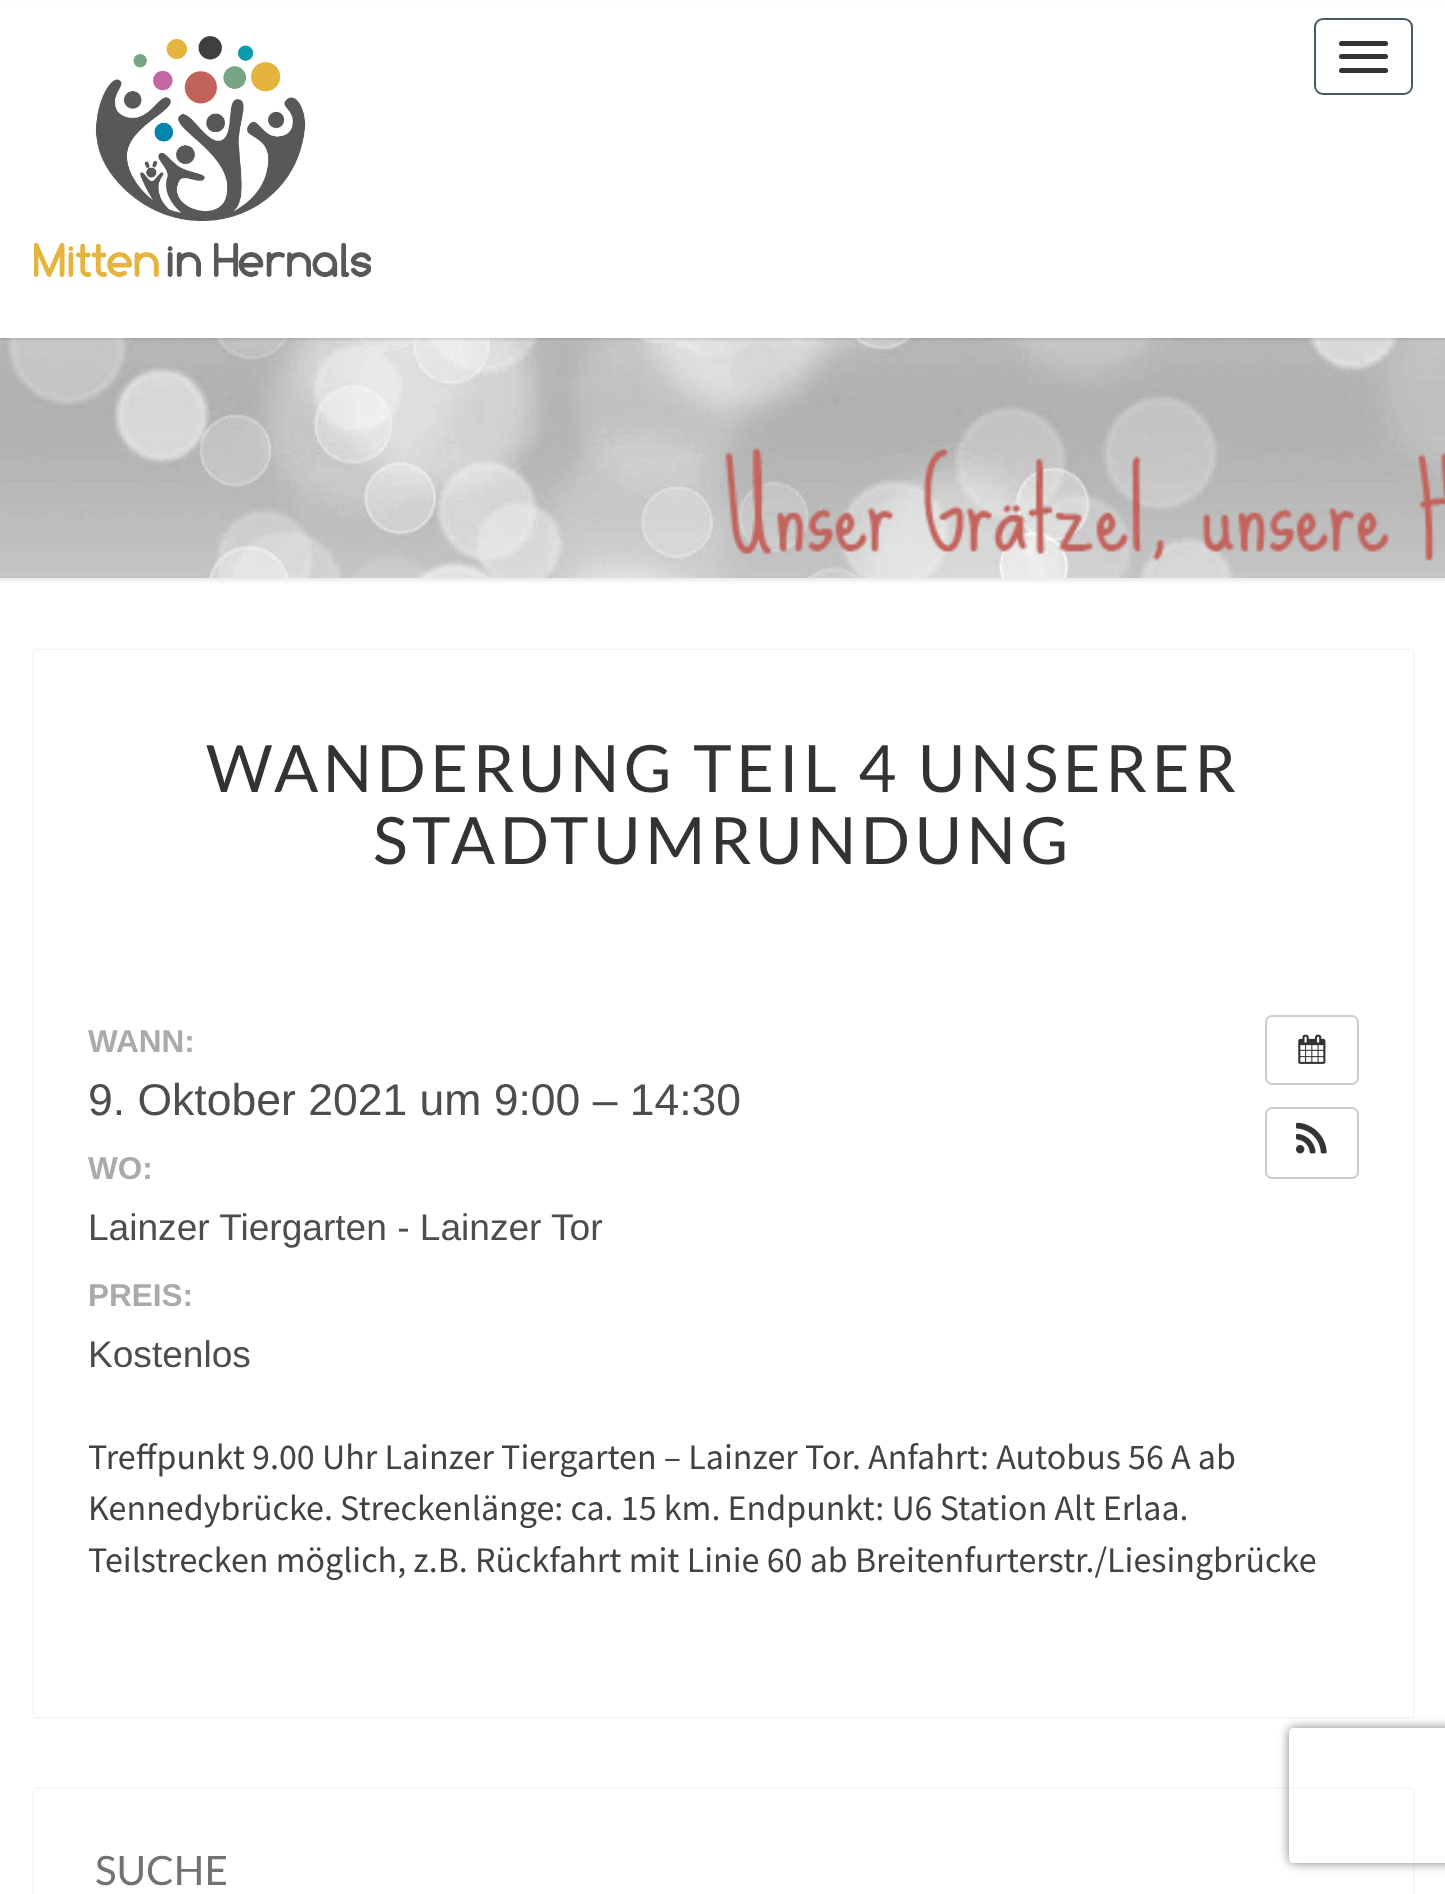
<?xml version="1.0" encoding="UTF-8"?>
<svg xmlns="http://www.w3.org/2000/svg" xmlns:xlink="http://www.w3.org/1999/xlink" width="1445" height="1894">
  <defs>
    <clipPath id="clip1"><path d="M 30 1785 h 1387 v 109 h -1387 z m 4 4 h 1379 v 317 h -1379 z" clip-rule="evenodd" /></clipPath>
    <clipPath id="clip2"><path d="M 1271 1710 h 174 v 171 h -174 z m 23 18 h 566 c 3 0 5 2 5 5 v 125 c 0 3 -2 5 -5 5 h -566 c -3 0 -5 -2 -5 -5 v -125 c 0 -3 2 -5 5 -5 z" clip-rule="evenodd" /></clipPath>
  </defs>
  <rect width="100%" height="100%" fill="#ffffff" />
  <rect x="-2" y="194" width="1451" height="387" fill="#b6b6b6" fill-opacity="0.3" filter="blur(2px)" />
  <image x="0" y="338" width="1445" height="240" xlink:href="image2.png" />
  <rect y="2" width="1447" height="338" fill="#646464" fill-opacity="0.2" filter="blur(1px)" />
  <rect y="1" width="1445" height="337" fill="#ffffff" />
  <image x="34" y="36" width="337" height="241" xlink:href="image1.png" />
  <rect x="1315" y="19" width="97" height="75" rx="8" fill="none" stroke="#455a64" stroke-width="2" />
  <rect x="1339" y="41" width="49" height="5" rx="2.5" fill="#333333" />
  <rect x="1339" y="54" width="49" height="5" rx="2.5" fill="#333333" />
  <rect x="1339" y="68" width="49" height="5" rx="2.5" fill="#333333" />
  <image x="725" y="447" width="720" height="114" xlink:href="image3.png" />
  <rect x="34" y="650" width="1379" height="1067" fill="#000000" fill-opacity="0.15" filter="blur(1px)" />
  <rect x="34" y="650" width="1379" height="1067" fill="#ffffff" />
  <rect x="1266" y="1016" width="92" height="68" rx="6" fill="none" stroke="#cccccc" stroke-width="2" />
  <image x="1298" y="1034" width="28" height="30" xlink:href="image4.png" />
  <rect x="1266" y="1108" width="92" height="70" rx="6" fill="none" stroke="#cccccc" stroke-width="2" />
  <image x="1296" y="1122" width="31" height="32" xlink:href="image5.png" />
  <g clip-path="url(#clip1)">
    <rect x="34" y="1789" width="1379" height="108" fill="#000000" fill-opacity="0.15" filter="blur(1px)" />
  </g>
  <g clip-path="url(#clip2)">
    <rect x="1289" y="1728" width="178" height="135" rx="5" fill="#808080" filter="blur(5.5px)" />
  </g>
  <text x="206" y="792" style="font-family: Lato; font-size: 65.25px; letter-spacing: 4.5px; fill: #333333">WANDERUNG TEIL 4 UNSERER</text>
  <text x="373" y="864" style="font-family: Lato; font-size: 65.25px; letter-spacing: 4.5px; fill: #333333">STADTUMRUNDUNG</text>
  <text x="88" y="1052" style="font-family: Liberation Sans; font-size: 31.5px; font-weight: bold; fill: #aaaaaa">WANN:</text>
  <text x="88" y="1115" style="font-family: Liberation Sans; font-size: 44.5px; fill: #4e4c4c">9. Oktober 2021 um 9:00 – 14:30</text>
  <text x="88" y="1179" style="font-family: Liberation Sans; font-size: 31.5px; font-weight: bold; fill: #aaaaaa">WO:</text>
  <text x="88" y="1240" style="font-family: Liberation Sans; font-size: 37.1px; fill: #4e4c4c">Lainzer Tiergarten - Lainzer Tor</text>
  <text x="88" y="1306" style="font-family: Liberation Sans; font-size: 31.5px; font-weight: bold; fill: #aaaaaa">PREIS:</text>
  <text x="88" y="1367" style="font-family: Liberation Sans; font-size: 37.1px; fill: #4e4c4c">Kostenlos</text>
  <text x="88" y="1469" style="font-family: Source Sans Pro; font-size: 36px; fill: #424242">Treffpunkt 9.00 Uhr Lainzer Tiergarten – Lainzer Tor. Anfahrt: Autobus 56 A ab</text>
  <text x="88" y="1520" style="font-family: Source Sans Pro; font-size: 36px; fill: #424242">Kennedybrücke. Streckenlänge: ca. 15 km. Endpunkt: U6 Station Alt Erlaa.</text>
  <text x="88" y="1572" style="font-family: Source Sans Pro; font-size: 36px; fill: #424242">Teilstrecken möglich, z.B. Rückfahrt mit Linie 60 ab Breitenfurterstr./Liesingbrücke</text>
  <text x="95" y="1885" style="font-family: Lato; font-size: 40.5px; fill: #727272">SUCHE</text>
</svg>
